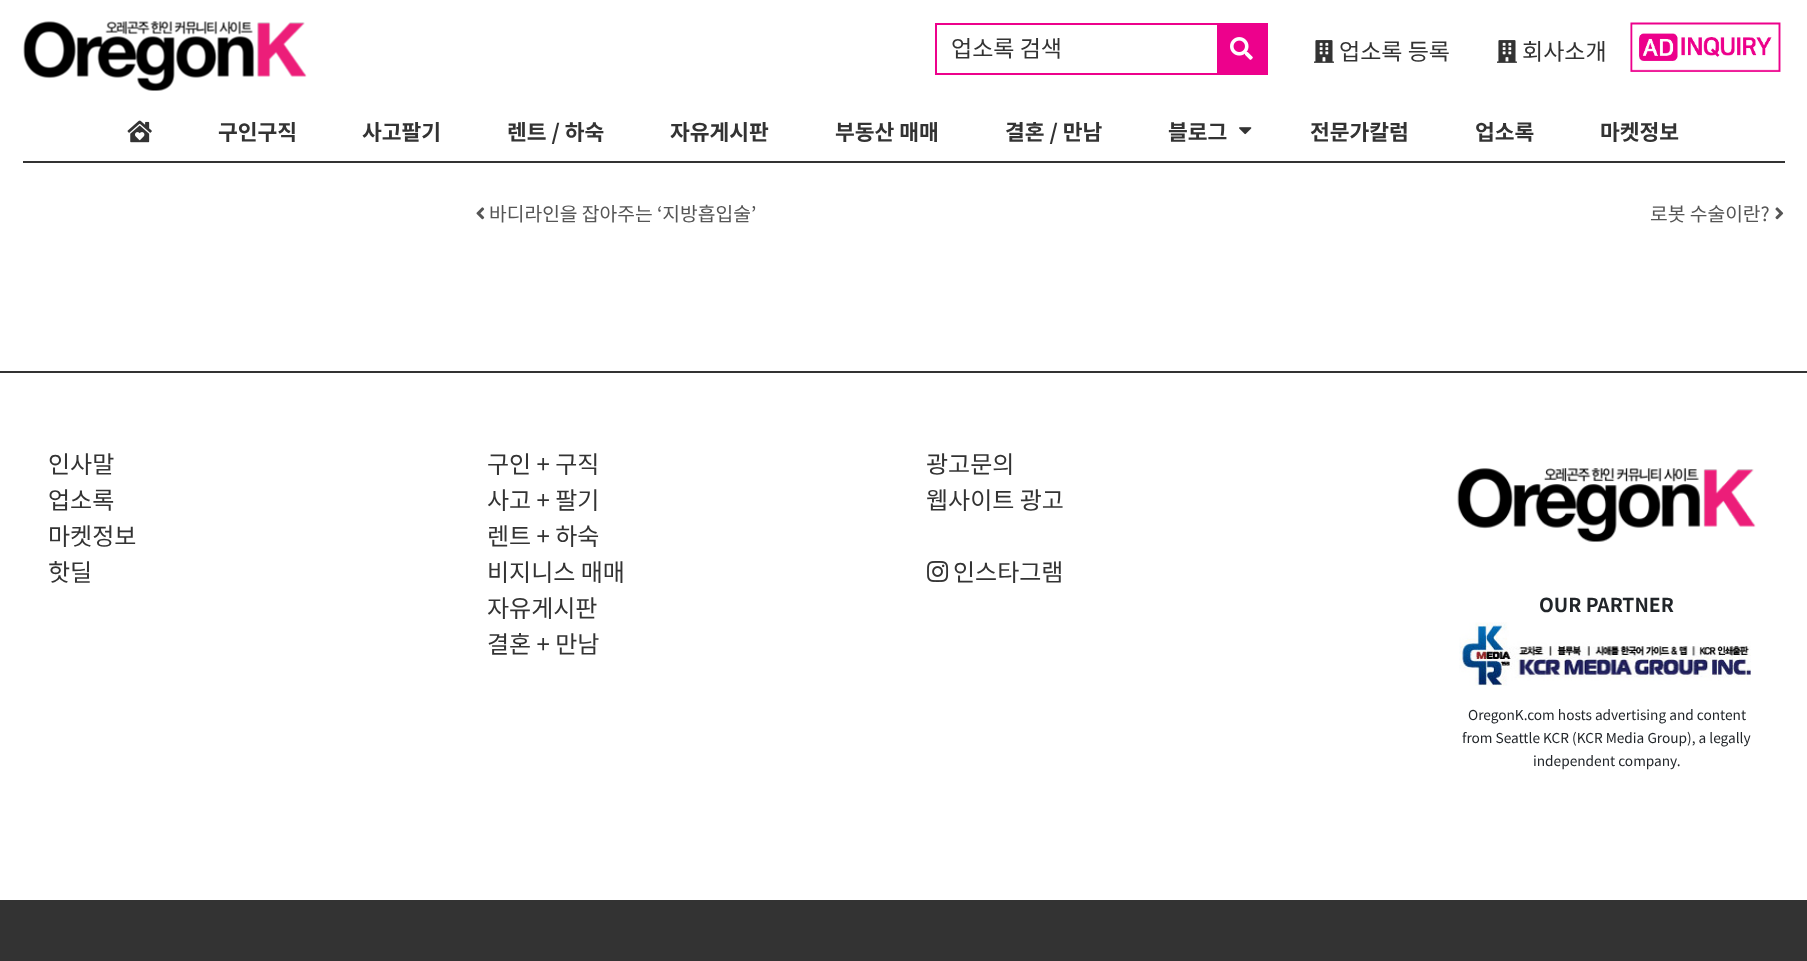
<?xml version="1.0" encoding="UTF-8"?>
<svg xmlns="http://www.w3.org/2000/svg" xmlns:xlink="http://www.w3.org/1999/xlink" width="1807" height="961">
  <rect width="100%" height="100%" fill="#ffffff" />
  <image x="23" y="21" width="284" height="70" xlink:href="image1.png" />
  <rect x="936" y="24" width="331" height="50" fill="none" stroke="#ed018c" stroke-width="2" />
  <rect x="1217" y="25" width="49" height="48" fill="#ed018c" />
  <image x="1230" y="37" width="23" height="23" xlink:href="image2.png" />
  <image x="1314" y="40" width="20" height="23" xlink:href="image3.png" />
  <image x="1497" y="40" width="20" height="23" xlink:href="image3.png" />
  <image x="1630" y="22" width="151" height="50" xlink:href="image4.png" />
  <rect x="23" y="161" width="1762" height="2" fill="#333333" />
  <image x="127" y="120" width="25" height="23" xlink:href="image5.png" />
  <image x="1239" y="127" width="13" height="8" xlink:href="image6.png" />
  <image x="476" y="207" width="9" height="13" xlink:href="image7.png" />
  <image x="1775" y="207" width="9" height="13" xlink:href="image8.png" />
  <rect y="371" width="1807" height="2" fill="#333333" />
  <image x="927" y="561" width="22" height="21" xlink:href="image9.png" />
  <image x="1457" y="468" width="299" height="74" xlink:href="image10.png" />
  <image x="1459" y="622" width="292" height="64" xlink:href="image11.png" />
  <rect y="900" width="1807" height="61" fill="#333333" />
  <text x="951" y="57" style="font-family: Noto Sans KR; font-size: 23px; fill: #333333">업소록 검색</text>
  <text x="1339" y="60" style="font-family: Noto Sans KR; font-size: 23px; fill: #333333">업소록 등록</text>
  <text x="1522" y="60" style="font-family: Noto Sans KR; font-size: 23px; fill: #333333">회사소개</text>
  <text x="218" y="140" style="font-family: Noto Sans KR; font-size: 21.5px; font-weight: bold; fill: #333333">구인구직</text>
  <text x="362" y="140" style="font-family: Noto Sans KR; font-size: 21.5px; font-weight: bold; fill: #333333">사고팔기</text>
  <text x="507" y="140" style="font-family: Noto Sans KR; font-size: 21.5px; font-weight: bold; fill: #333333">렌트 / 하숙</text>
  <text x="670" y="140" style="font-family: Noto Sans KR; font-size: 21.5px; font-weight: bold; fill: #333333">자유게시판</text>
  <text x="835" y="140" style="font-family: Noto Sans KR; font-size: 21.5px; font-weight: bold; fill: #333333">부동산 매매</text>
  <text x="1005" y="140" style="font-family: Noto Sans KR; font-size: 21.5px; font-weight: bold; fill: #333333">결혼 / 만남</text>
  <text x="1168" y="140" style="font-family: Noto Sans KR; font-size: 21.5px; font-weight: bold; fill: #333333">블로그</text>
  <text x="1310" y="140" style="font-family: Noto Sans KR; font-size: 21.5px; font-weight: bold; fill: #333333">전문가칼럼</text>
  <text x="1475" y="140" style="font-family: Noto Sans KR; font-size: 21.5px; font-weight: bold; fill: #333333">업소록</text>
  <text x="1600" y="140" style="font-family: Noto Sans KR; font-size: 21.5px; font-weight: bold; fill: #333333">마켓정보</text>
  <text x="489" y="221" style="font-family: Noto Sans KR; font-size: 19.25px; fill: #555555">바디라인을 잡아주는 ‘지방흡입술’</text>
  <text x="1650" y="221" style="font-family: Noto Sans KR; font-size: 19.25px; fill: #555555">로봇 수술이란?</text>
  <text x="48" y="473" style="font-family: Noto Sans KR; font-size: 24px; fill: #333333">인사말</text>
  <text x="48" y="509" style="font-family: Noto Sans KR; font-size: 24px; fill: #333333">업소록</text>
  <text x="48" y="545" style="font-family: Noto Sans KR; font-size: 24px; fill: #333333">마켓정보</text>
  <text x="48" y="581" style="font-family: Noto Sans KR; font-size: 24px; fill: #333333">핫딜</text>
  <text x="487" y="473" style="font-family: Noto Sans KR; font-size: 24px; fill: #333333">구인 + 구직</text>
  <text x="487" y="509" style="font-family: Noto Sans KR; font-size: 24px; fill: #333333">사고 + 팔기</text>
  <text x="487" y="545" style="font-family: Noto Sans KR; font-size: 24px; fill: #333333">렌트 + 하숙</text>
  <text x="487" y="581" style="font-family: Noto Sans KR; font-size: 24px; fill: #333333">비지니스 매매</text>
  <text x="487" y="617" style="font-family: Noto Sans KR; font-size: 24px; fill: #333333">자유게시판</text>
  <text x="487" y="653" style="font-family: Noto Sans KR; font-size: 24px; fill: #333333">결혼 + 만남</text>
  <text x="926" y="473" style="font-family: Noto Sans KR; font-size: 24px; fill: #333333">광고문의</text>
  <text x="926" y="509" style="font-family: Noto Sans KR; font-size: 24px; fill: #333333">웹사이트 광고</text>
  <text x="953" y="581" style="font-family: Noto Sans KR; font-size: 24px; fill: #333333">인스타그램</text>
  <text x="1539" y="612" style="font-family: Noto Sans KR; font-size: 19.25px; font-weight: bold; fill: #212529">OUR PARTNER</text>
  <text x="1468" y="720" style="font-family: Noto Sans KR; font-size: 13.7px; fill: #212529">OregonK.com hosts advertising and content</text>
  <text x="1462" y="743" style="font-family: Noto Sans KR; font-size: 13.7px; fill: #212529">from Seattle KCR (KCR Media Group), a legally</text>
  <text x="1533" y="766" style="font-family: Noto Sans KR; font-size: 13.7px; fill: #212529">independent company.</text>
</svg>
